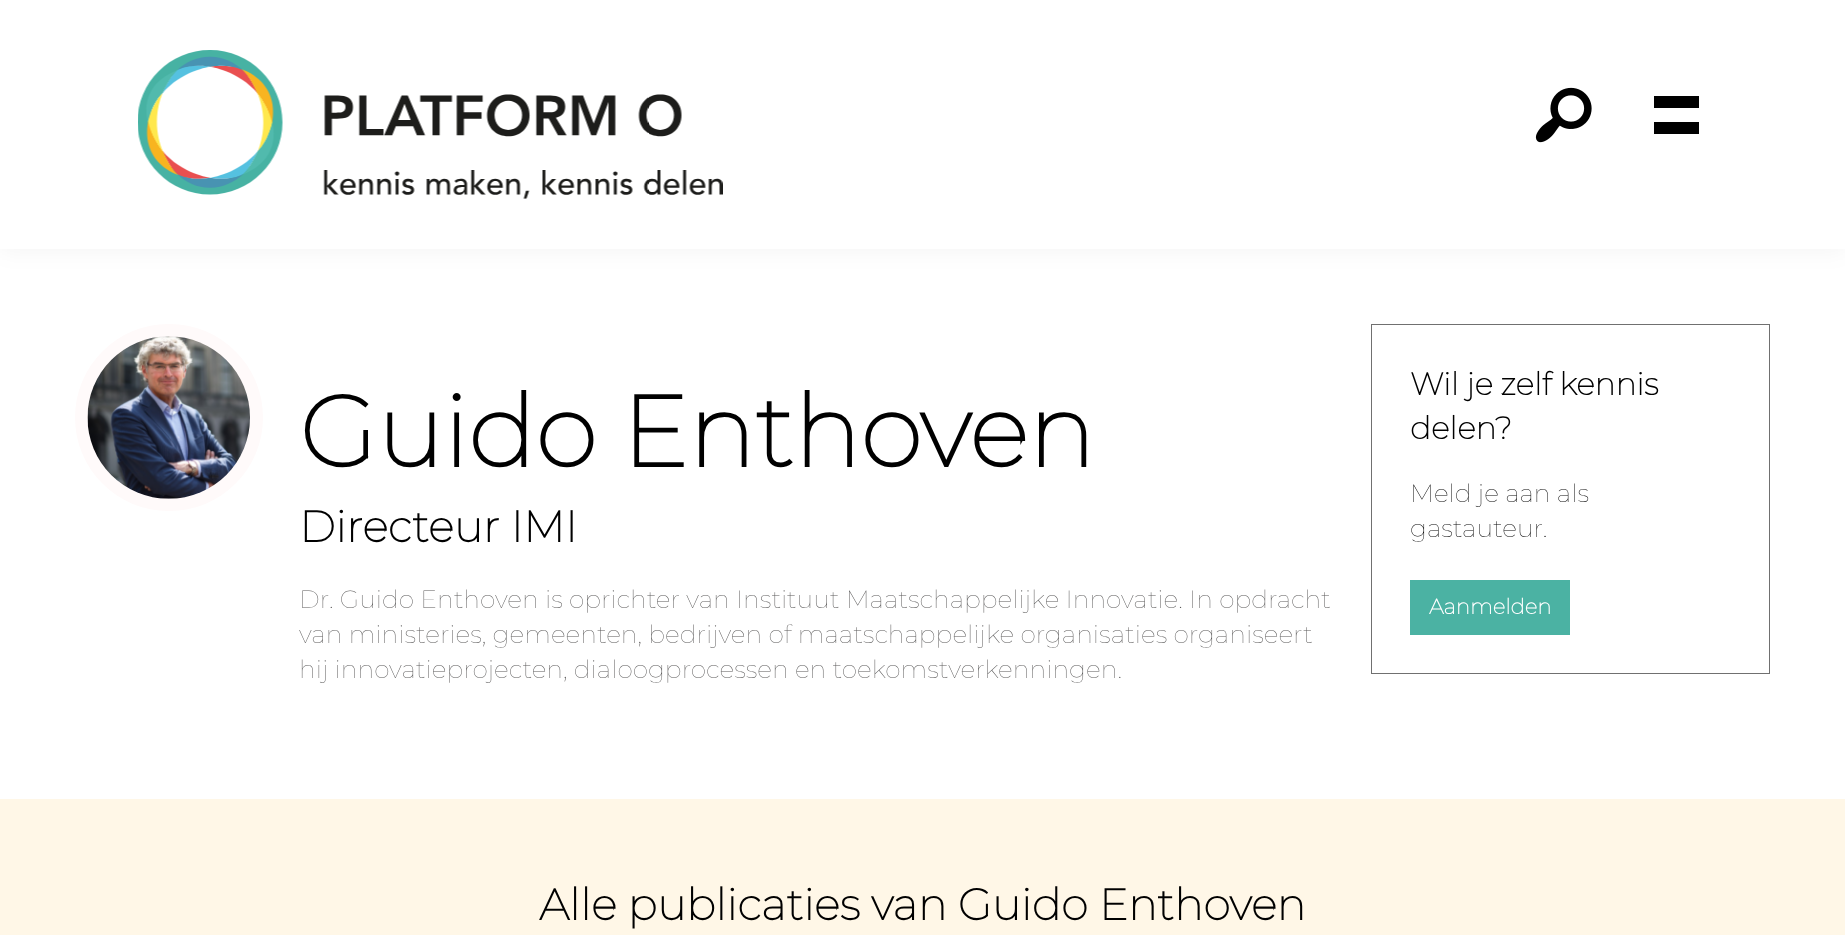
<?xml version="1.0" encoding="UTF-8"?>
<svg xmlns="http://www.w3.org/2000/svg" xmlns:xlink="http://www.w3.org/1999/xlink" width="1845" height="935">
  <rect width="100%" height="100%" fill="#ffffff" />
  <rect width="1845" height="249" fill="#000000" fill-opacity="0.05" filter="blur(12.5px)" />
  <rect width="1845" height="249" fill="#ffffff" />
  <image x="138" y="50" width="585" height="149" xlink:href="image1.png" />
  <image x="1535" y="87" width="57" height="56" xlink:href="image2.png" />
  <path d="M 1654 96 h 45 v 12 h -45 z m 45 26 v 12 h -45 v -12 z" fill="#000000" />
  <rect x="75" y="324" width="188" height="187" rx="93.5" fill="#fffafa" />
  <image x="87" y="336" width="163" height="163" xlink:href="image3.png" />
  <rect x="1371.5" y="324.5" width="398" height="349" fill="none" stroke="#707070" />
  <rect x="1410" y="580" width="160" height="55" fill="#4bb2a3" />
  <rect y="799" width="1845" height="136" fill="#fff7e7" />
  <text x="299" y="467" style="font-family: Montserrat; font-size: 100px; font-weight: bold; fill: #000000">Guido Enthoven</text>
  <text x="299" y="542" style="font-family: Montserrat; font-size: 43.75px; font-weight: bold; fill: #000000">Directeur IMI</text>
  <text x="299" y="608" style="font-family: Montserrat; font-size: 25px; font-weight: 100; fill: #5a5959">Dr. Guido Enthoven is oprichter van Instituut Maatschappelijke Innovatie. In opdracht</text>
  <text x="299" y="643" style="font-family: Montserrat; font-size: 25px; font-weight: 100; fill: #5a5959">van ministeries, gemeenten, bedrijven of maatschappelijke organisaties organiseert</text>
  <text x="299" y="678" style="font-family: Montserrat; font-size: 25px; font-weight: 100; fill: #5a5959">hij innovatieprojecten, dialoogprocessen en toekomstverkenningen.</text>
  <text x="1410" y="395" style="font-family: Montserrat; font-size: 31.25px; font-weight: bold; fill: #000000">Wil je zelf kennis</text>
  <text x="1410" y="439" style="font-family: Montserrat; font-size: 31.25px; font-weight: bold; fill: #000000">delen?</text>
  <text x="1410" y="502" style="font-family: Montserrat; font-size: 25px; font-weight: 100; fill: #000000">Meld je aan als</text>
  <text x="1410" y="537" style="font-family: Montserrat; font-size: 25px; font-weight: 100; fill: #000000">gastauteur.</text>
  <text x="1429" y="614" style="font-family: Montserrat; font-size: 21.25px; font-weight: bold; fill: #ffffff">Aanmelden</text>
  <text x="539" y="920" style="font-family: Montserrat; font-size: 43.75px; font-weight: bold; fill: #000000">Alle publicaties van Guido Enthoven</text>
</svg>
